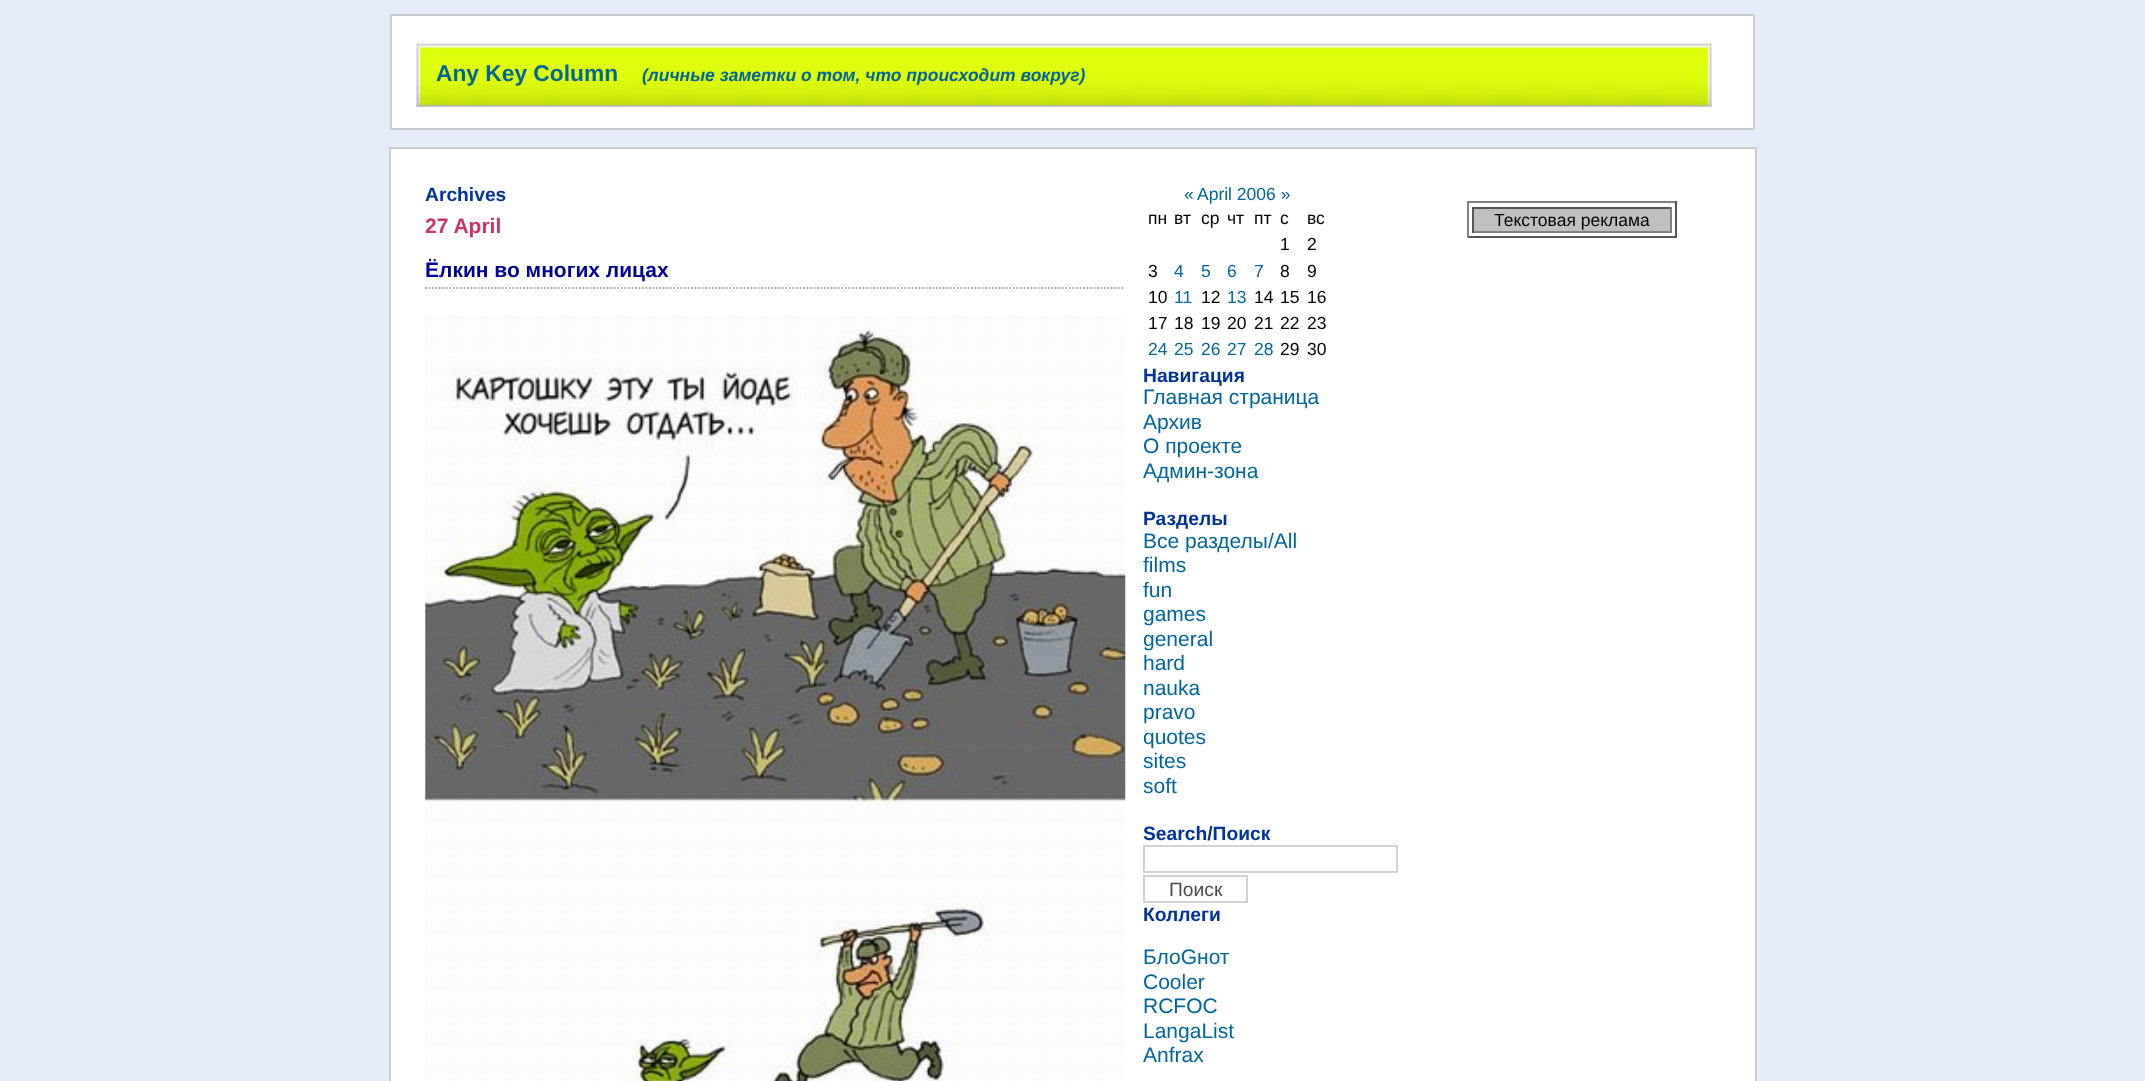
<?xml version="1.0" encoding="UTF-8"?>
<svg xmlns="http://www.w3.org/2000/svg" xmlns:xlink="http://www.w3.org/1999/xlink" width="2145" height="1081">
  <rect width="100%" height="100%" fill="#e5ecf9" />
  <rect x="391" y="15" width="1363" height="114" fill="#ffffff" stroke="#cccccc" stroke-width="2" />
  <image x="416" y="42" width="1296" height="65" xlink:href="image1.png" />
  <rect x="390" y="148" width="1366" height="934" fill="#ffffff" stroke="#cccccc" stroke-width="2" />
  <path d="M 425 288 h 700" fill="none" stroke="#a9a9a9" stroke-width="1.8" stroke-dasharray="1.75 1.75" />
  <image x="425" y="315" width="701" height="766" xlink:href="image2.png" />
  <rect x="1144" y="846" width="253" height="26" fill="none" stroke="#d4d2cf" stroke-width="2" />
  <rect x="1144" y="876" width="103" height="26" fill="none" stroke="#d4d2cf" stroke-width="2" />
  <rect x="1467" y="201" width="210" height="2" fill="#808080" />
  <rect x="1675" y="201" width="2" height="37" fill="#555555" />
  <rect x="1467" y="236" width="210" height="2" fill="#555555" />
  <rect x="1467" y="201" width="2" height="37" fill="#808080" />
  <rect x="1474" y="209" width="196" height="22" fill="#c0c0c0" />
  <rect x="1472" y="207" width="199" height="2" fill="#555555" />
  <rect x="1670" y="207" width="2" height="26" fill="#808080" />
  <rect x="1472" y="231" width="199" height="2" fill="#808080" />
  <rect x="1472" y="207" width="2" height="26" fill="#555555" />
  <text x="436" y="81" style="font-family: Liberation Sans; font-size: 22.75px; font-weight: bold; fill: #006699">Any Key Column</text>
  <text x="642" y="81" style="font-family: Liberation Sans; font-size: 17.5px; font-weight: bold; font-style: italic; fill: #006699">(личные заметки о том, что происходит вокруг)</text>
  <text x="425" y="201" style="font-family: Liberation Sans; font-size: 19.25px; font-weight: bold; fill: #003399">Archives</text>
  <text x="425" y="233" style="font-family: Liberation Sans; font-size: 21px; font-weight: bold; fill: #cc3366">27 April</text>
  <text x="425" y="277" style="font-family: Liberation Sans; font-size: 21px; font-weight: bold; fill: #000099">Ёлкин во многих лицах</text>
  <text x="1184" y="200" style="font-family: Liberation Sans; font-size: 17.5px; fill: #006699">«</text>
  <text x="1197" y="200" style="font-family: Liberation Sans; font-size: 17.5px; fill: #006699">April 2006 »</text>
  <text x="1148" y="224" style="font-family: Liberation Sans; font-size: 17.5px; fill: #000000">пн</text>
  <text x="1174" y="224" style="font-family: Liberation Sans; font-size: 17.5px; fill: #000000">вт</text>
  <text x="1201" y="224" style="font-family: Liberation Sans; font-size: 17.5px; fill: #000000">ср</text>
  <text x="1227" y="224" style="font-family: Liberation Sans; font-size: 17.5px; fill: #000000">чт</text>
  <text x="1254" y="224" style="font-family: Liberation Sans; font-size: 17.5px; fill: #000000">пт</text>
  <text x="1280" y="224" style="font-family: Liberation Sans; font-size: 17.5px; fill: #000000">с</text>
  <text x="1307" y="224" style="font-family: Liberation Sans; font-size: 17.5px; fill: #000000">вс</text>
  <text x="1280" y="250" style="font-family: Liberation Sans; font-size: 17.5px; fill: #000000">1</text>
  <text x="1307" y="250" style="font-family: Liberation Sans; font-size: 17.5px; fill: #000000">2</text>
  <text x="1148" y="277" style="font-family: Liberation Sans; font-size: 17.5px; fill: #000000">3</text>
  <text x="1174" y="277" style="font-family: Liberation Sans; font-size: 17.5px; fill: #006699">4</text>
  <text x="1201" y="277" style="font-family: Liberation Sans; font-size: 17.5px; fill: #006699">5</text>
  <text x="1227" y="277" style="font-family: Liberation Sans; font-size: 17.5px; fill: #006699">6</text>
  <text x="1254" y="277" style="font-family: Liberation Sans; font-size: 17.5px; fill: #006699">7</text>
  <text x="1280" y="277" style="font-family: Liberation Sans; font-size: 17.5px; fill: #000000">8</text>
  <text x="1307" y="277" style="font-family: Liberation Sans; font-size: 17.5px; fill: #000000">9</text>
  <text x="1148" y="303" style="font-family: Liberation Sans; font-size: 17.5px; fill: #000000">10</text>
  <text x="1174" y="303" style="font-family: Liberation Sans; font-size: 17.5px; fill: #006699">11</text>
  <text x="1201" y="303" style="font-family: Liberation Sans; font-size: 17.5px; fill: #000000">12</text>
  <text x="1227" y="303" style="font-family: Liberation Sans; font-size: 17.5px; fill: #006699">13</text>
  <text x="1254" y="303" style="font-family: Liberation Sans; font-size: 17.5px; fill: #000000">14</text>
  <text x="1280" y="303" style="font-family: Liberation Sans; font-size: 17.5px; fill: #000000">15</text>
  <text x="1307" y="303" style="font-family: Liberation Sans; font-size: 17.5px; fill: #000000">16</text>
  <text x="1148" y="329" style="font-family: Liberation Sans; font-size: 17.5px; fill: #000000">17</text>
  <text x="1174" y="329" style="font-family: Liberation Sans; font-size: 17.5px; fill: #000000">18</text>
  <text x="1201" y="329" style="font-family: Liberation Sans; font-size: 17.5px; fill: #000000">19</text>
  <text x="1227" y="329" style="font-family: Liberation Sans; font-size: 17.5px; fill: #000000">20</text>
  <text x="1254" y="329" style="font-family: Liberation Sans; font-size: 17.5px; fill: #000000">21</text>
  <text x="1280" y="329" style="font-family: Liberation Sans; font-size: 17.5px; fill: #000000">22</text>
  <text x="1307" y="329" style="font-family: Liberation Sans; font-size: 17.5px; fill: #000000">23</text>
  <text x="1148" y="355" style="font-family: Liberation Sans; font-size: 17.5px; fill: #006699">24</text>
  <text x="1174" y="355" style="font-family: Liberation Sans; font-size: 17.5px; fill: #006699">25</text>
  <text x="1201" y="355" style="font-family: Liberation Sans; font-size: 17.5px; fill: #006699">26</text>
  <text x="1227" y="355" style="font-family: Liberation Sans; font-size: 17.5px; fill: #006699">27</text>
  <text x="1254" y="355" style="font-family: Liberation Sans; font-size: 17.5px; fill: #006699">28</text>
  <text x="1280" y="355" style="font-family: Liberation Sans; font-size: 17.5px; fill: #000000">29</text>
  <text x="1307" y="355" style="font-family: Liberation Sans; font-size: 17.5px; fill: #000000">30</text>
  <text x="1143" y="382" style="font-family: Liberation Sans; font-size: 19.25px; font-weight: bold; fill: #003399">Навигация</text>
  <text x="1143" y="404" style="font-family: Liberation Sans; font-size: 21px; fill: #006699">Главная страница</text>
  <text x="1143" y="429" style="font-family: Liberation Sans; font-size: 21px; fill: #006699">Архив</text>
  <text x="1143" y="453" style="font-family: Liberation Sans; font-size: 21px; fill: #006699">О проекте</text>
  <text x="1143" y="478" style="font-family: Liberation Sans; font-size: 21px; fill: #006699">Админ-зона</text>
  <text x="1143" y="525" style="font-family: Liberation Sans; font-size: 19.25px; font-weight: bold; fill: #003399">Разделы</text>
  <text x="1143" y="548" style="font-family: Liberation Sans; font-size: 21px; fill: #006699">Все разделы/All</text>
  <text x="1143" y="572" style="font-family: Liberation Sans; font-size: 21px; fill: #006699">films</text>
  <text x="1143" y="597" style="font-family: Liberation Sans; font-size: 21px; fill: #006699">fun</text>
  <text x="1143" y="621" style="font-family: Liberation Sans; font-size: 21px; fill: #006699">games</text>
  <text x="1143" y="646" style="font-family: Liberation Sans; font-size: 21px; fill: #006699">general</text>
  <text x="1143" y="670" style="font-family: Liberation Sans; font-size: 21px; fill: #006699">hard</text>
  <text x="1143" y="695" style="font-family: Liberation Sans; font-size: 21px; fill: #006699">nauka</text>
  <text x="1143" y="719" style="font-family: Liberation Sans; font-size: 21px; fill: #006699">pravo</text>
  <text x="1143" y="744" style="font-family: Liberation Sans; font-size: 21px; fill: #006699">quotes</text>
  <text x="1143" y="768" style="font-family: Liberation Sans; font-size: 21px; fill: #006699">sites</text>
  <text x="1143" y="793" style="font-family: Liberation Sans; font-size: 21px; fill: #006699">soft</text>
  <text x="1143" y="840" style="font-family: Liberation Sans; font-size: 19.25px; font-weight: bold; fill: #003399">Search/Поиск</text>
  <text x="1169" y="896" style="font-family: Liberation Sans; font-size: 19.25px; fill: #494949">Поиск</text>
  <text x="1143" y="921" style="font-family: Liberation Sans; font-size: 19.25px; font-weight: bold; fill: #003399">Коллеги</text>
  <text x="1143" y="964" style="font-family: Liberation Sans; font-size: 21px; fill: #006699">БлоGнот</text>
  <text x="1143" y="989" style="font-family: Liberation Sans; font-size: 21px; fill: #006699">Cooler</text>
  <text x="1143" y="1013" style="font-family: Liberation Sans; font-size: 21px; fill: #006699">RCFOC</text>
  <text x="1143" y="1038" style="font-family: Liberation Sans; font-size: 21px; fill: #006699">LangaList</text>
  <text x="1143" y="1062" style="font-family: Liberation Sans; font-size: 21px; fill: #006699">Anfrax</text>
  <text x="1494" y="226" style="font-family: Liberation Sans; font-size: 17.5px; fill: #000000">Текстовая реклама</text>
</svg>
